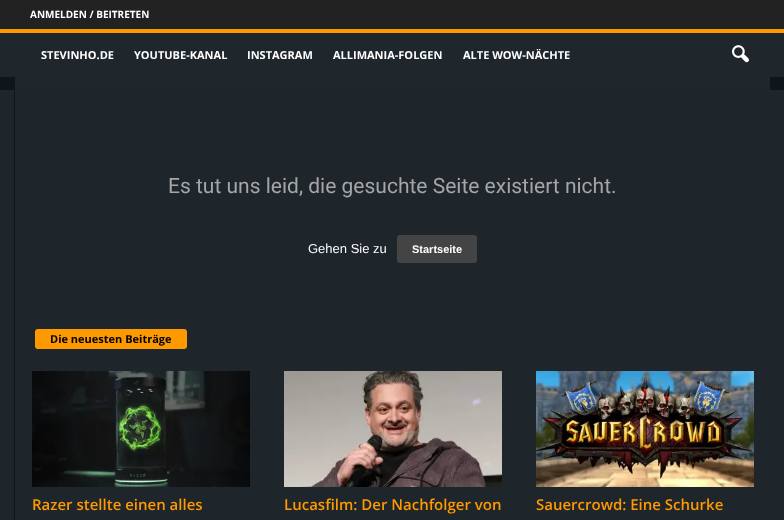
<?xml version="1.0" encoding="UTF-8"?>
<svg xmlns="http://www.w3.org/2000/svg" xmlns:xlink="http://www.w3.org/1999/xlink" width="784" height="520">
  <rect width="100%" height="100%" fill="#0e151b" />
  <rect y="90" width="784" height="430" fill="#1e252b" />
  <rect width="784" height="29" fill="#222222" />
  <rect y="33" width="784" height="44" fill="#1f262c" />
  <rect y="29" width="784" height="4" fill="#ff9900" />
  <image x="732" y="45" width="17" height="18" xlink:href="image1.png" />
  <rect x="15" y="77" width="755" height="13" fill="#1f262c" />
  <rect x="14" y="77" width="1" height="443" fill="#111419" />
  <rect x="397" y="235" width="80" height="28" rx="3" fill="#444444" />
  <rect x="35" y="329" width="152" height="20" rx="3" fill="#ff9900" />
  <image x="32" y="371" width="218" height="116" xlink:href="image2.png" />
  <image x="284" y="371" width="218" height="116" xlink:href="image3.png" />
  <image x="536" y="371" width="218" height="116" xlink:href="image4.png" />
  <text x="30" y="18" style="font-family: Open Sans; font-size: 10px; font-weight: bold; fill: #ffffff">ANMELDEN / BEITRETEN</text>
  <text x="41" y="59" style="font-family: Open Sans; font-size: 11px; font-weight: bold; fill: #ffffff">STEVINHO.DE</text>
  <text x="134" y="59" style="font-family: Open Sans; font-size: 11px; font-weight: bold; fill: #ffffff">YOUTUBE-KANAL</text>
  <text x="247" y="59" style="font-family: Open Sans; font-size: 11px; font-weight: bold; fill: #ffffff">INSTAGRAM</text>
  <text x="333" y="59" style="font-family: Open Sans; font-size: 11px; font-weight: bold; fill: #ffffff">ALLIMANIA-FOLGEN</text>
  <text x="463" y="59" style="font-family: Open Sans; font-size: 11px; font-weight: bold; fill: #ffffff">ALTE WOW-NÄCHTE</text>
  <text x="168" y="193" style="font-family: Roboto; font-size: 21px; fill: #a6a6a6">Es tut uns leid, die gesuchte Seite existiert nicht.</text>
  <text x="308" y="253" style="font-family: Liberation Sans; font-size: 13px; fill: #ffffff">Gehen Sie zu</text>
  <text x="412" y="253" style="font-family: Liberation Sans; font-size: 11px; font-weight: bold; fill: #ffffff">Startseite</text>
  <text x="50" y="343" style="font-family: Open Sans; font-size: 11px; font-weight: bold; fill: #000000">Die neuesten Beiträge</text>
  <text x="32" y="510" style="font-family: Open Sans; font-size: 15px; font-weight: 600; fill: #ff9900">Razer stellte einen alles</text>
  <text x="284" y="510" style="font-family: Open Sans; font-size: 15px; font-weight: 600; fill: #ff9900">Lucasfilm: Der Nachfolger von</text>
  <text x="536" y="510" style="font-family: Open Sans; font-size: 15px; font-weight: 600; fill: #ff9900">Sauercrowd: Eine Schurke</text>
</svg>
